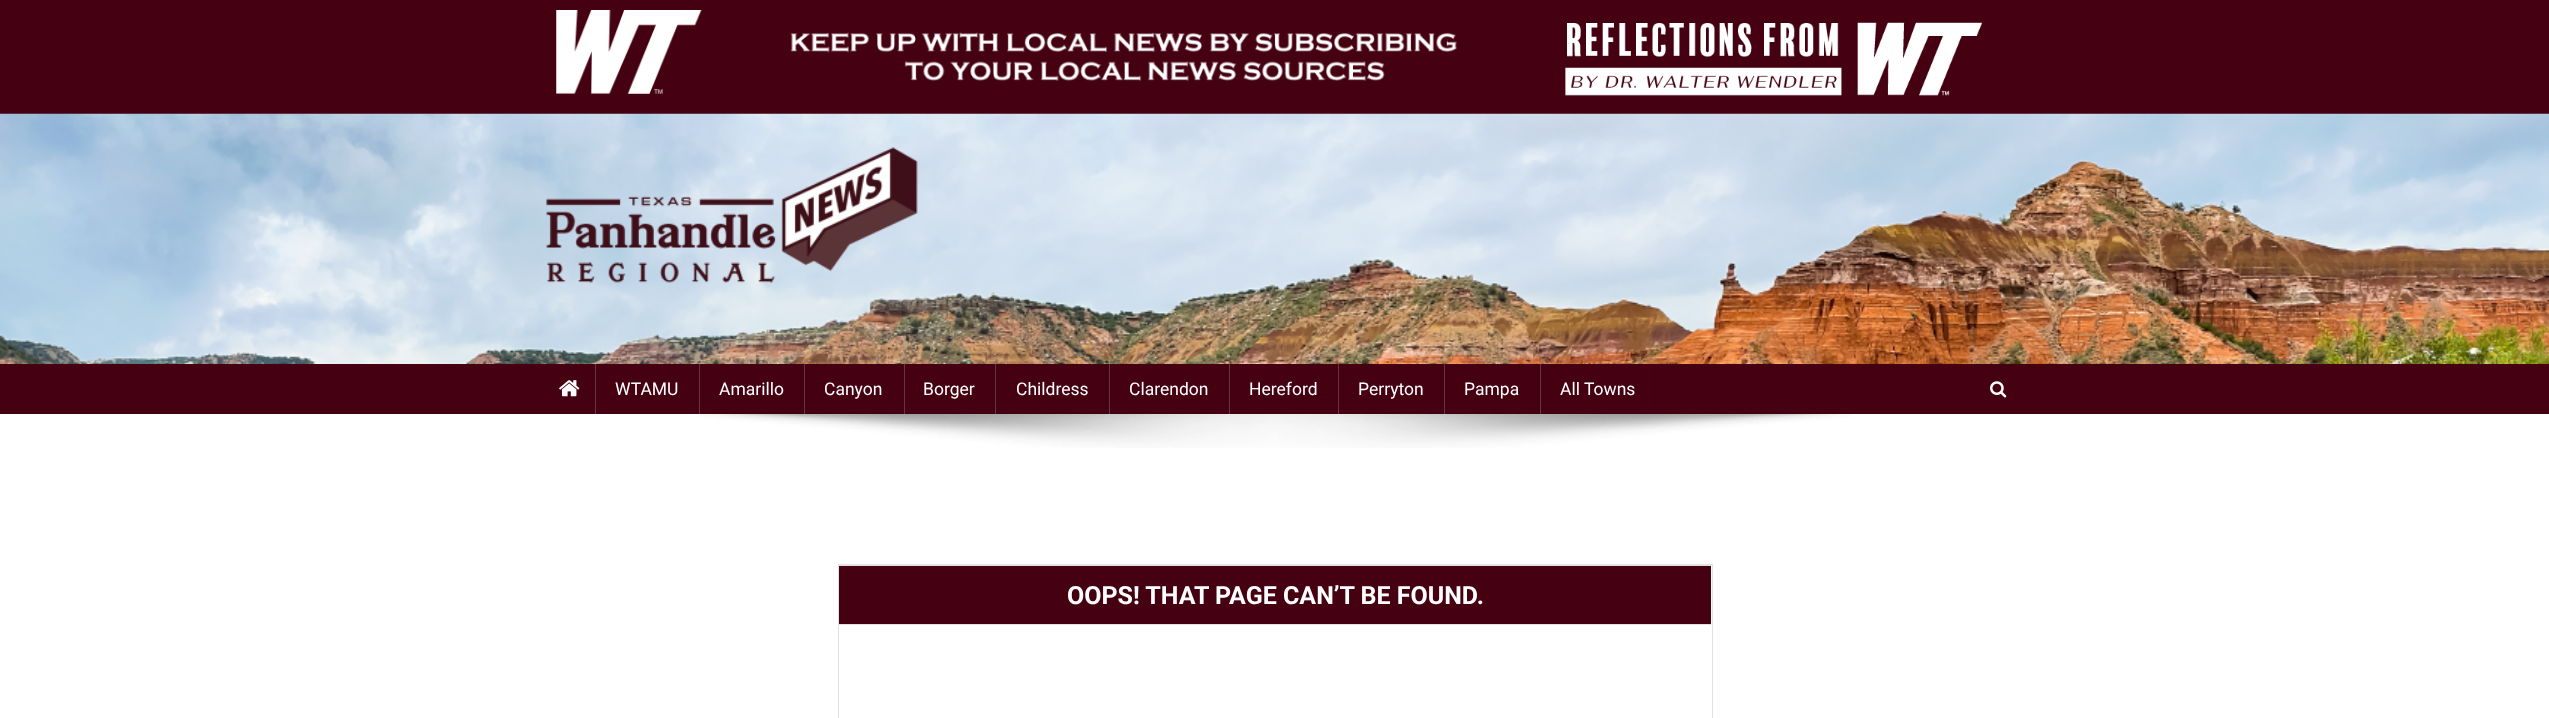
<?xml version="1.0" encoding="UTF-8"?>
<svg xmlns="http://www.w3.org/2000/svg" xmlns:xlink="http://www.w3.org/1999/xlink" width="2549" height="718">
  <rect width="100%" height="100%" fill="#ffffff" />
  <rect width="2549" height="114" fill="#450012" />
  <image x="556" y="10" width="146" height="84" xlink:href="image1.png" />
  <image x="790" y="32" width="667" height="49" xlink:href="image2.png" />
  <image x="1565" y="22" width="418" height="74" xlink:href="image3.png" />
  <image x="0" y="113" width="2549" height="251" xlink:href="image4.png" />
  <image x="546" y="147" width="372" height="136" xlink:href="image5.png" />
  <rect y="364" width="2549" height="50" fill="#450012" />
  <image x="559" y="380" width="21" height="17" xlink:href="image6.png" />
  <rect x="696" y="364" width="1" height="50" fill="#3f0011" />
  <rect x="595" y="364" width="1" height="50" fill="#6a3341" />
  <image x="697" y="413" width="1155" height="35" xlink:href="image8.png" />
  <rect x="803" y="364" width="1" height="50" fill="#000000" fill-opacity="0.08" />
  <rect x="699" y="364" width="1" height="50" fill="#6a3341" />
  <rect x="901" y="364" width="1" height="50" fill="#000000" fill-opacity="0.08" />
  <rect x="804" y="364" width="1" height="50" fill="#ffffff" fill-opacity="0.2" />
  <rect x="994" y="364" width="1" height="50" fill="#000000" fill-opacity="0.08" />
  <rect x="904" y="364" width="1" height="50" fill="#ffffff" fill-opacity="0.2" />
  <rect x="1106" y="364" width="1" height="50" fill="#000000" fill-opacity="0.08" />
  <rect x="995" y="364" width="1" height="50" fill="#ffffff" fill-opacity="0.2" />
  <rect x="1226" y="364" width="1" height="50" fill="#3f0011" />
  <rect x="1109" y="364" width="1" height="50" fill="#ffffff" fill-opacity="0.2" />
  <rect x="1336" y="364" width="1" height="50" fill="#3f0011" />
  <rect x="1229" y="364" width="1" height="50" fill="#6a3341" />
  <rect x="1443" y="364" width="1" height="50" fill="#000000" fill-opacity="0.08" />
  <rect x="1338" y="364" width="1" height="50" fill="#6a3341" />
  <rect x="1538" y="364" width="1" height="50" fill="#000000" fill-opacity="0.08" />
  <rect x="1444" y="364" width="1" height="50" fill="#ffffff" fill-opacity="0.2" />
  <rect x="1654" y="364" width="1" height="50" fill="#000000" fill-opacity="0.08" />
  <rect x="1540" y="364" width="1" height="50" fill="#ffffff" fill-opacity="0.2" />
  <image x="1990" y="381" width="17" height="17" xlink:href="image7.png" />
  <rect x="838.5" y="564.5" width="874" height="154" fill="none" stroke="#e1e1e1" />
  <rect x="839" y="566" width="872" height="58" fill="#450012" />
  <rect x="839" y="565" width="872" height="1" fill="#e1e1e1" />
  <rect x="839" y="624" width="872" height="1" fill="#e1e1e1" />
  <text x="615" y="395" style="font-family: Roboto; font-size: 17.5px; fill: #ffffff">WTAMU</text>
  <text x="719" y="395" style="font-family: Roboto; font-size: 17.5px; fill: #ffffff">Amarillo</text>
  <text x="824" y="395" style="font-family: Roboto; font-size: 17.5px; fill: #ffffff">Canyon</text>
  <text x="923" y="395" style="font-family: Roboto; font-size: 17.5px; fill: #ffffff">Borger</text>
  <text x="1016" y="395" style="font-family: Roboto; font-size: 17.5px; fill: #ffffff">Childress</text>
  <text x="1129" y="395" style="font-family: Roboto; font-size: 17.5px; fill: #ffffff">Clarendon</text>
  <text x="1249" y="395" style="font-family: Roboto; font-size: 17.5px; fill: #ffffff">Hereford</text>
  <text x="1358" y="395" style="font-family: Roboto; font-size: 17.5px; fill: #ffffff">Perryton</text>
  <text x="1464" y="395" style="font-family: Roboto; font-size: 17.5px; fill: #ffffff">Pampa</text>
  <text x="1560" y="395" style="font-family: Roboto; font-size: 17.5px; fill: #ffffff">All Towns</text>
  <text x="1067" y="604" style="font-family: Roboto; font-size: 25px; font-weight: bold; fill: #ffffff">OOPS! THAT PAGE CAN’T BE FOUND.</text>
</svg>
